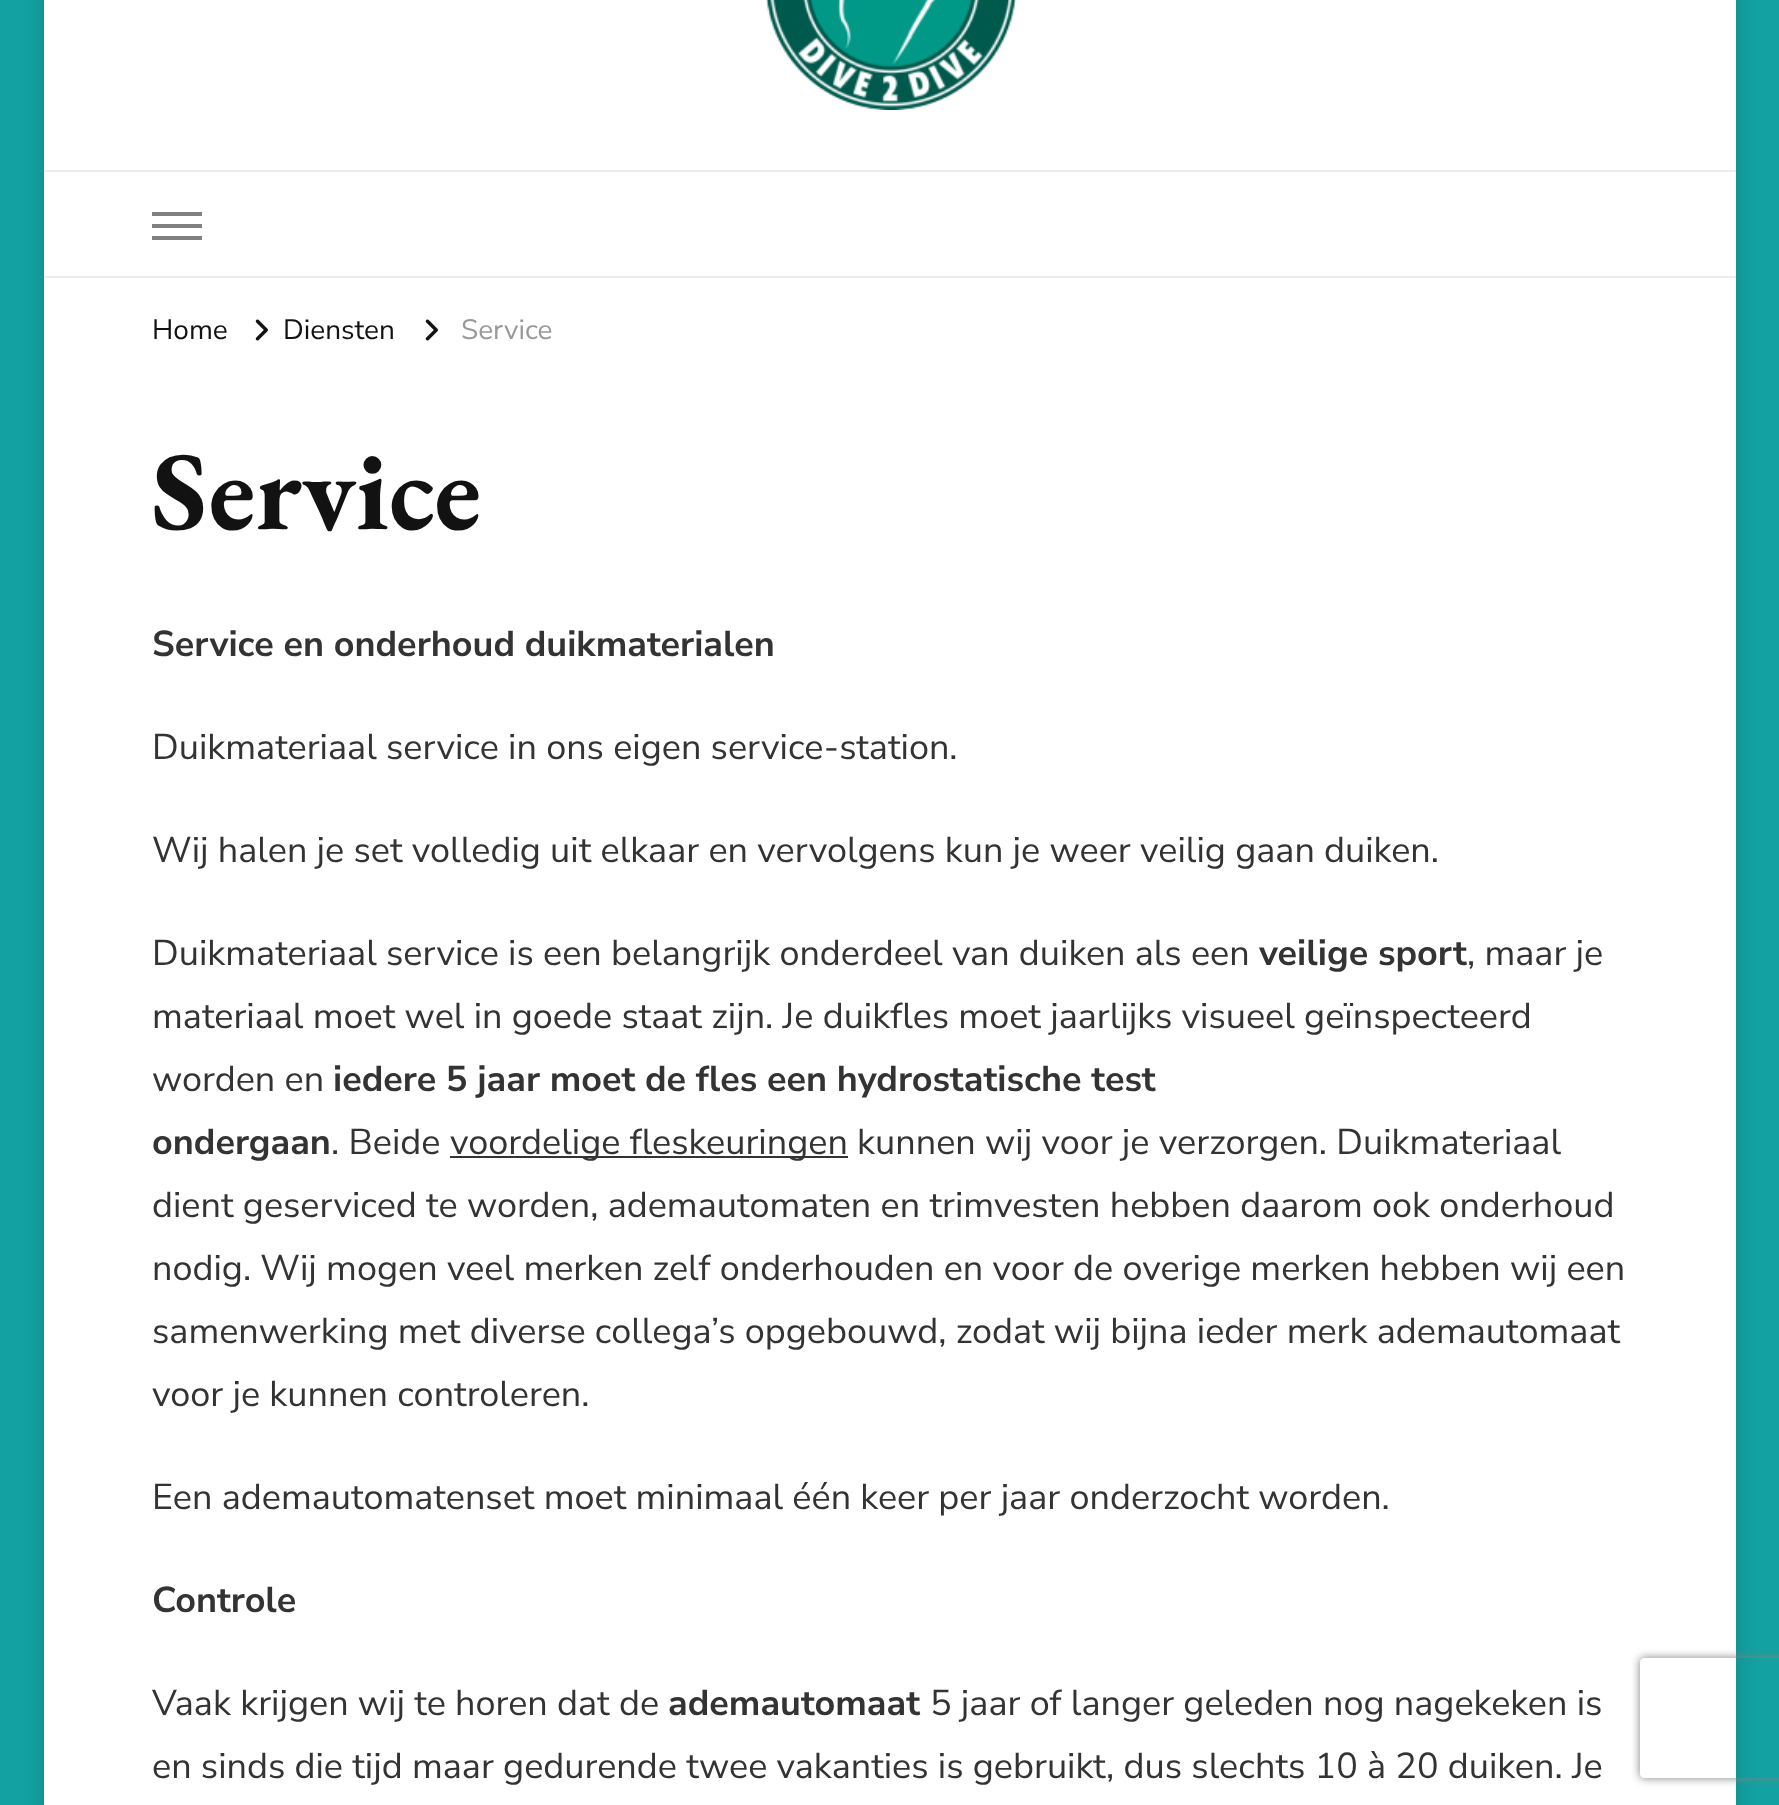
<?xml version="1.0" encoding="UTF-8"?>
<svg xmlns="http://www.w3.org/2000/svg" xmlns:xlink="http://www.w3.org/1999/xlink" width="1779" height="1805">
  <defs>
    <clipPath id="clip1"><path d="M 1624 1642 h 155 v 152 h -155 z m 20 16 h 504 c 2 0 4 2 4 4 v 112 c 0 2 -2 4 -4 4 h -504 c -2 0 -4 -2 -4 -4 v -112 c 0 -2 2 -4 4 -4 z" clip-rule="evenodd" /></clipPath>
  </defs>
  <rect width="100%" height="100%" fill="#13a1a1" />
  <rect x="44" y="-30" width="1692" height="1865" fill="#000000" fill-opacity="0.16" filter="blur(10px)" />
  <rect x="44" width="1692" height="1805" fill="#ffffff" />
  <image x="766" y="0" width="250" height="110" xlink:href="image1.png" />
  <rect x="44" y="170" width="1692" height="2" fill="#ededed" />
  <rect x="44" y="276" width="1692" height="2" fill="#ededed" />
  <rect x="152" y="212" width="50" height="4" fill="#808080" />
  <rect x="152" y="224" width="50" height="4" fill="#808080" />
  <rect x="152" y="236" width="50" height="4" fill="#808080" />
  <image x="255" y="319" width="13" height="22" xlink:href="image2.png" />
  <image x="425" y="319" width="13" height="22" xlink:href="image2.png" />
  <rect x="450" y="1156" width="398" height="2" fill="#333333" />
  <g clip-path="url(#clip1)">
    <rect x="1640" y="1658" width="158" height="120" rx="4" fill="#808080" filter="blur(5px)" />
  </g>
  <text x="152" y="339" style="font-family: Nunito Sans; font-size: 28px; fill: #121212">Home</text>
  <text x="283" y="339" style="font-family: Nunito Sans; font-size: 28px; fill: #121212">Diensten</text>
  <text x="461" y="339" style="font-family: Nunito Sans; font-size: 28px; fill: #999999">Service</text>
  <text x="152" y="529" style="font-family: EB Garamond; font-size: 112px; font-weight: bold; fill: #121212">Service</text>
  <text x="152" y="656" style="font-family: Nunito Sans; font-size: 36px; font-weight: bold; fill: #333333">Service en onderhoud duikmaterialen</text>
  <text x="152" y="759" style="font-family: Nunito Sans; font-size: 36px; fill: #333333">Duikmateriaal service in ons eigen service-station.</text>
  <text x="152" y="862" style="font-family: Nunito Sans; font-size: 36px; fill: #333333">Wij halen je set volledig uit elkaar en vervolgens kun je weer veilig gaan duiken.</text>
  <text x="152" y="965" style="font-family: Nunito Sans; font-size: 36px; fill: #333333">Duikmateriaal service is een belangrijk onderdeel van duiken als een</text>
  <text x="1259" y="965" style="font-family: Nunito Sans; font-size: 36px; font-weight: bold; fill: #333333">veilige sport</text>
  <text x="1467" y="965" style="font-family: Nunito Sans; font-size: 36px; fill: #333333">, maar je</text>
  <text x="152" y="1028" style="font-family: Nunito Sans; font-size: 36px; fill: #333333">materiaal moet wel in goede staat zijn. Je duikfles moet jaarlijks visueel geïnspecteerd</text>
  <text x="152" y="1091" style="font-family: Nunito Sans; font-size: 36px; fill: #333333">worden en</text>
  <text x="333" y="1091" style="font-family: Nunito Sans; font-size: 36px; font-weight: bold; fill: #333333">iedere 5 jaar moet de fles een hydrostatische test</text>
  <text x="152" y="1154" style="font-family: Nunito Sans; font-size: 36px; font-weight: bold; fill: #333333">ondergaan</text>
  <text x="331" y="1154" style="font-family: Nunito Sans; font-size: 36px; fill: #333333">. Beide</text>
  <text x="450" y="1154" style="font-family: Nunito Sans; font-size: 36px; fill: #333333">voordelige fleskeuringen kunnen wij voor je verzorgen. Duikmateriaal</text>
  <text x="152" y="1217" style="font-family: Nunito Sans; font-size: 36px; fill: #333333">dient geserviced te worden, ademautomaten en trimvesten hebben daarom ook onderhoud</text>
  <text x="152" y="1280" style="font-family: Nunito Sans; font-size: 36px; fill: #333333">nodig. Wij mogen veel merken zelf onderhouden en voor de overige merken hebben wij een</text>
  <text x="152" y="1343" style="font-family: Nunito Sans; font-size: 36px; fill: #333333">samenwerking met diverse collega’s opgebouwd, zodat wij bijna ieder merk ademautomaat</text>
  <text x="152" y="1406" style="font-family: Nunito Sans; font-size: 36px; fill: #333333">voor je kunnen controleren.</text>
  <text x="152" y="1509" style="font-family: Nunito Sans; font-size: 36px; fill: #333333">Een ademautomatenset moet minimaal één keer per jaar onderzocht worden.</text>
  <text x="152" y="1612" style="font-family: Nunito Sans; font-size: 36px; font-weight: bold; fill: #333333">Controle</text>
  <text x="152" y="1715" style="font-family: Nunito Sans; font-size: 36px; fill: #333333">Vaak krijgen wij te horen dat de</text>
  <text x="668" y="1715" style="font-family: Nunito Sans; font-size: 36px; font-weight: bold; fill: #333333">ademautomaat</text>
  <text x="930" y="1715" style="font-family: Nunito Sans; font-size: 36px; fill: #333333">5 jaar of langer geleden nog nagekeken is</text>
  <text x="152" y="1778" style="font-family: Nunito Sans; font-size: 36px; fill: #333333">en sinds die tijd maar gedurende twee vakanties is gebruikt, dus slechts 10 à 20 duiken. Je</text>
</svg>
